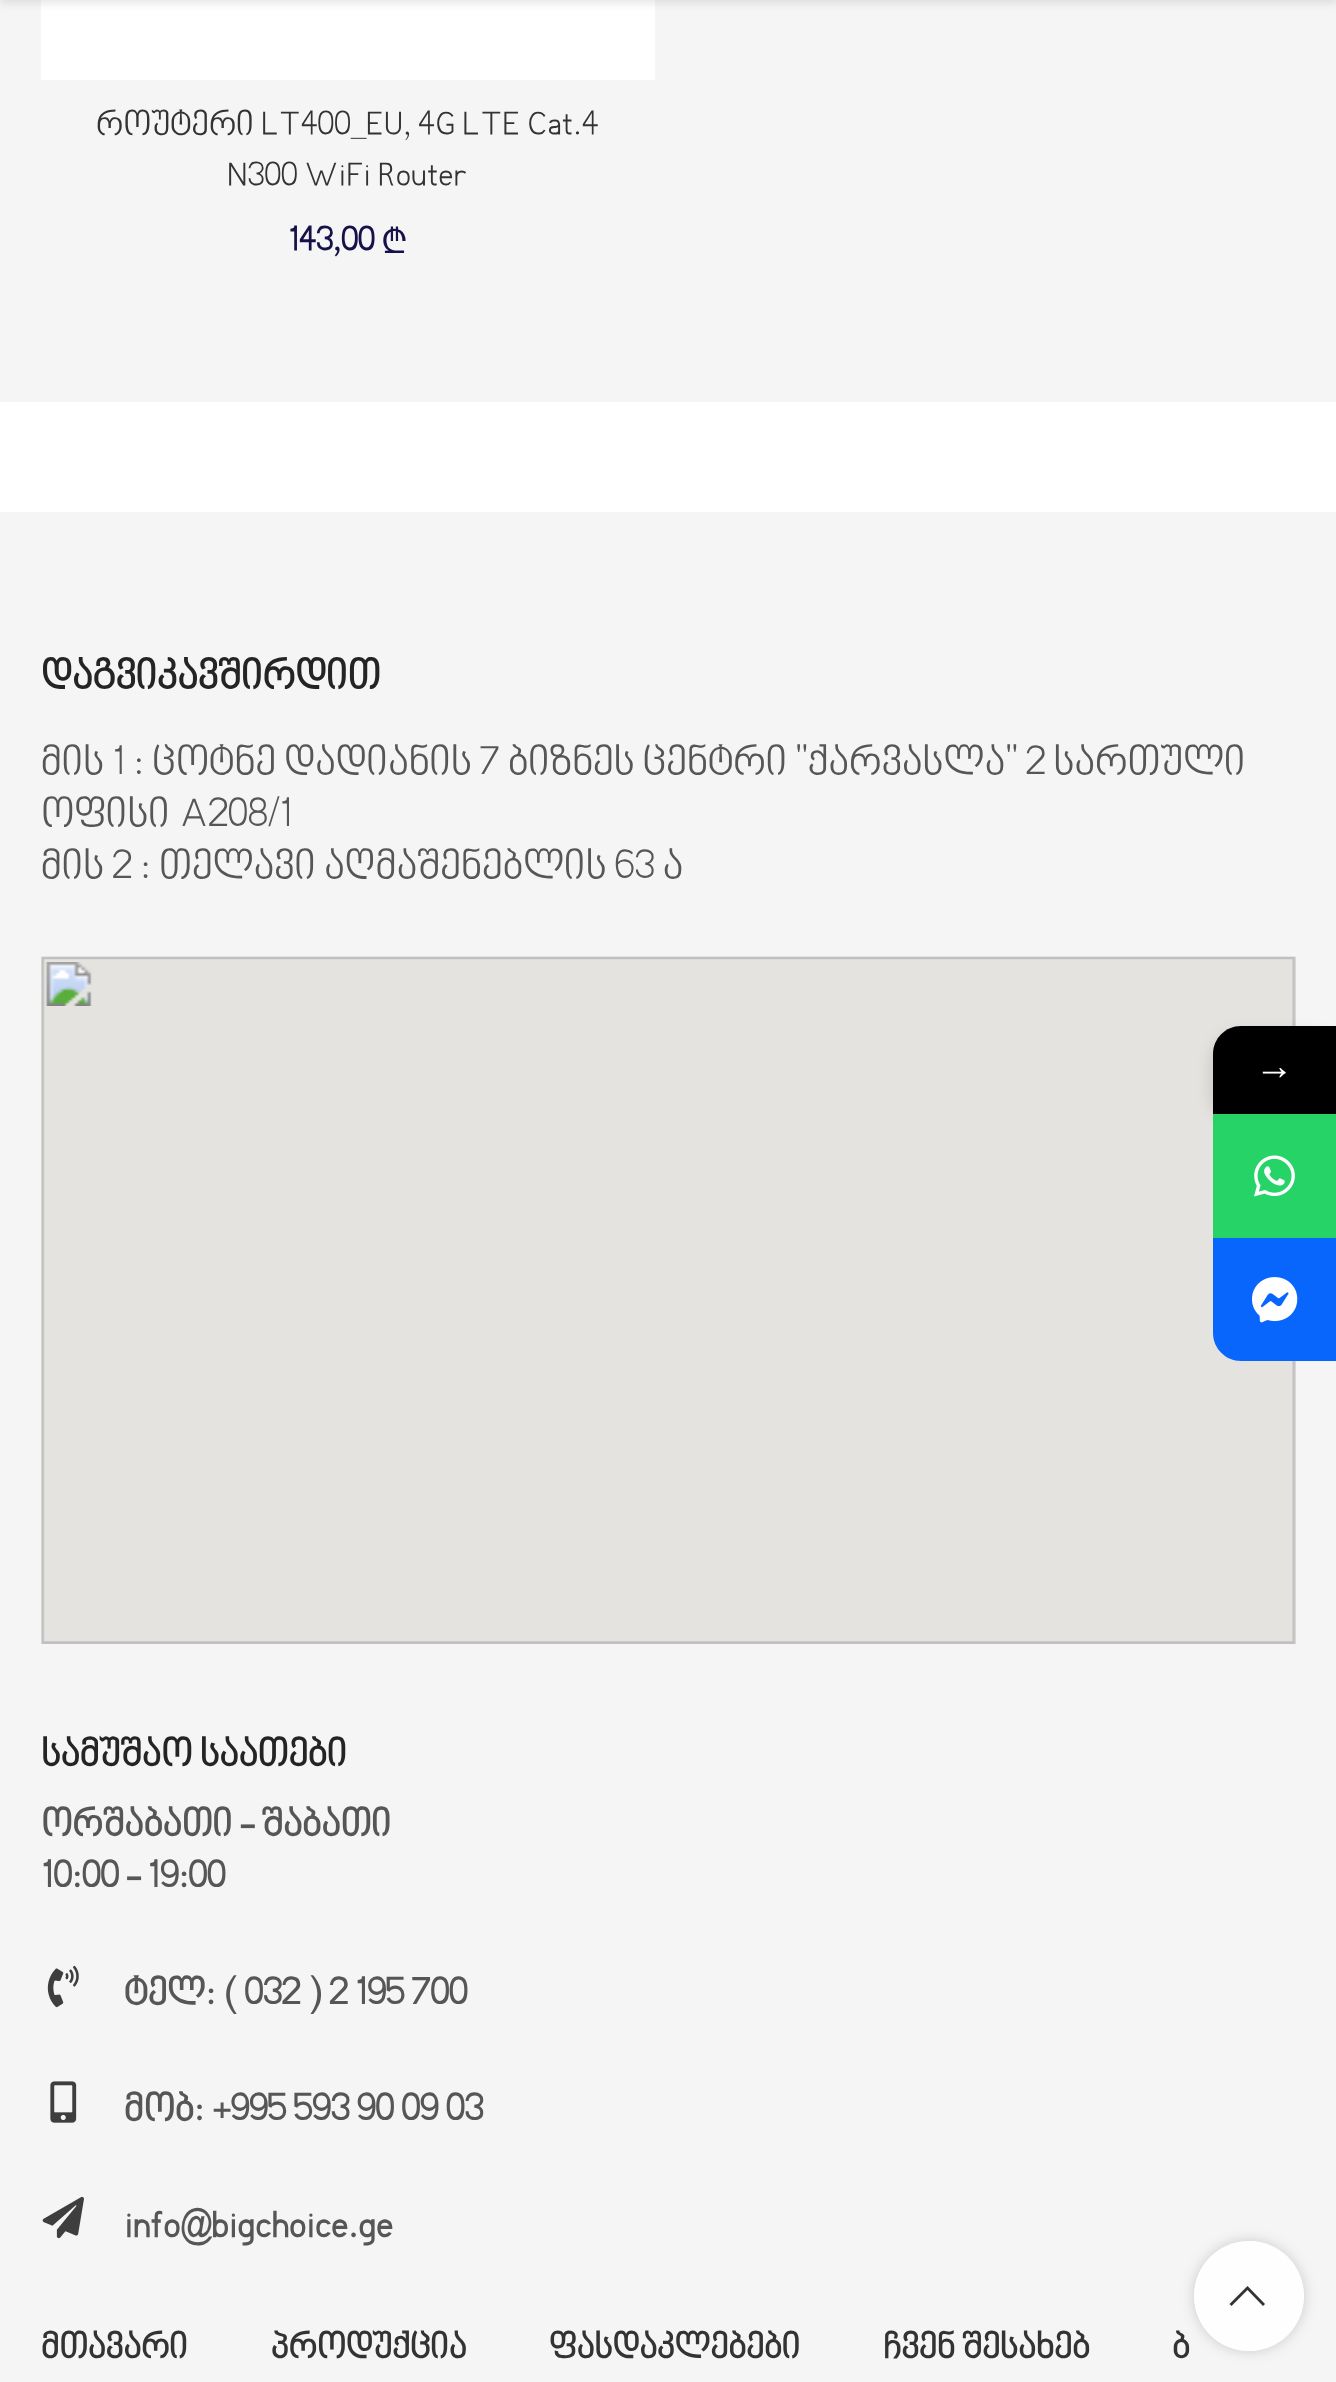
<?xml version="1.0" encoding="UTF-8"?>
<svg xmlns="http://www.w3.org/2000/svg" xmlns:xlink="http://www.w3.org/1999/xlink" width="1336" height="2382">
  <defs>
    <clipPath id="clip1"><path d="M 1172 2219 h 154 v 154 h -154 z m 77 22 c 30.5 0 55 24.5 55 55 c 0 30.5 -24.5 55 -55 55 c -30.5 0 -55 -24.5 -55 -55 c 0 -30.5 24.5 -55 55 -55 z" clip-rule="evenodd" /></clipPath>
  </defs>
  <rect width="100%" height="100%" fill="#ffffff" />
  <rect width="1336" height="402" fill="#f5f5f5" />
  <rect x="41" width="614" height="80" fill="#ffffff" />
  <rect y="-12" width="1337" height="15" fill="#000000" fill-opacity="0.1" filter="blur(4px)" />
  <rect y="512" width="1336" height="1870" fill="#f5f5f5" />
  <image x="41" y="956" width="1255" height="688" xlink:href="image1.png" />
  <image x="47" y="1965" width="32" height="43" xlink:href="image2.png" />
  <image x="50" y="2081" width="27" height="42" xlink:href="image3.png" />
  <image x="42" y="2196" width="42" height="43" xlink:href="image4.png" />
  <rect x="1213" y="1034" width="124" height="88" rx="28" fill="#000000" fill-opacity="0.16" filter="blur(8px)" />
  <path d="M 1241 1026 h 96 v 88 h -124 v -60 c 0 -15.5 12.5 -28 28 -28 z" fill="#000000" />
  <rect x="1213" y="1114" width="123" height="124" fill="#26d367" />
  <image x="1254" y="1155" width="41" height="42" xlink:href="image5.png" />
  <path d="M 1213 1238 h 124 v 123 h -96 c -15.5 0 -28 -12.5 -28 -28 z" fill="#0866fc" />
  <image x="1252" y="1277" width="46" height="46" xlink:href="image6.png" />
  <g clip-path="url(#clip1)">
    <rect x="1194" y="2241" width="110" height="110" rx="55" fill="#000000" fill-opacity="0.17" filter="blur(7px)" />
  </g>
  <circle cx="1249" cy="2296" r="55" fill="#ffffff" fill-opacity="0.9" />
  <path d="M 1263 2306 l 2 -2 l -17.5 -18 l -18 18 l 2 2 l 16 -16 z" fill="#333333" />
  <text x="96" y="137" style="font-family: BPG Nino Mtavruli; font-size: 34.6px; fill: #333333">როუტერი LT400_EU, 4G LTE Cat.4</text>
  <text x="227" y="188" style="font-family: BPG Nino Mtavruli; font-size: 34.6px; fill: #333333">N300 WiFi Router</text>
  <text x="288" y="253" style="font-family: BPG Nino Mtavruli; font-size: 34.6px; font-weight: bold; fill: #161148">143,00</text>
  <text x="381" y="253" style="font-family: Noto Sans; font-size: 34.6px; fill: #161148">₾</text>
  <text x="41" y="691" style="font-family: BPG Nino Mtavruli; font-size: 41.25px; font-weight: bold; fill: #242424">დაგვიკავშირდით</text>
  <text x="41" y="777" style="font-family: BPG Nino Mtavruli; font-size: 41.25px; fill: #565656">მის 1 : ცოტნე დადიანის 7 ბიზნეს ცენტრი "ქარვასლა" 2 სართული</text>
  <text x="41" y="829" word-spacing="2" style="font-family: BPG Nino Mtavruli; font-size: 41.25px; fill: #565656">ოფისი A208/1</text>
  <text x="41" y="881" style="font-family: BPG Nino Mtavruli; font-size: 41.25px; fill: #565656">მის 2 : თელავი აღმაშენებლის 63 ა</text>
  <text x="41" y="1768" style="font-family: BPG Nino Mtavruli; font-size: 38.5px; font-weight: bold; fill: #242424">სამუშაო საათები</text>
  <text x="41" y="1838" style="font-family: BPG Nino Mtavruli; font-size: 38.5px; font-weight: bold; fill: #565656">ორშაბათი - შაბათი</text>
  <text x="41" y="1890" style="font-family: BPG Nino Mtavruli; font-size: 38.5px; font-weight: bold; fill: #565656">10:00 - 19:00</text>
  <text x="124" y="2007" style="font-family: BPG Nino Mtavruli; font-size: 38.5px; font-weight: bold; fill: #565656">ტელ: ( 032 ) 2 195 700</text>
  <text x="124" y="2123" style="font-family: BPG Nino Mtavruli; font-size: 38.5px; font-weight: bold; fill: #565656">მობ: +995 593 90 09 03</text>
  <text x="124" y="2240" style="font-family: BPG Nino Mtavruli; font-size: 38.5px; font-weight: bold; fill: #565656">info@bigchoice.ge</text>
  <text x="41" y="2360" style="font-family: BPG Nino Mtavruli; font-size: 35.75px; font-weight: bold; fill: #333333">მთავარი</text>
  <text x="271" y="2360" style="font-family: BPG Nino Mtavruli; font-size: 35.75px; font-weight: bold; fill: #333333">პროდუქცია</text>
  <text x="549" y="2360" style="font-family: BPG Nino Mtavruli; font-size: 35.75px; font-weight: bold; fill: #333333">ფასდაკლებები</text>
  <text x="883" y="2360" style="font-family: BPG Nino Mtavruli; font-size: 35.75px; font-weight: bold; fill: #333333">ჩვენ შესახებ</text>
  <text x="1172" y="2360" style="font-family: BPG Nino Mtavruli; font-size: 35.75px; font-weight: bold; fill: #333333">ბ</text>
  <text x="1255" y="1079" style="font-family: Liberation Sans; font-size: 38.5px; fill: #ffffff">→</text>
</svg>
